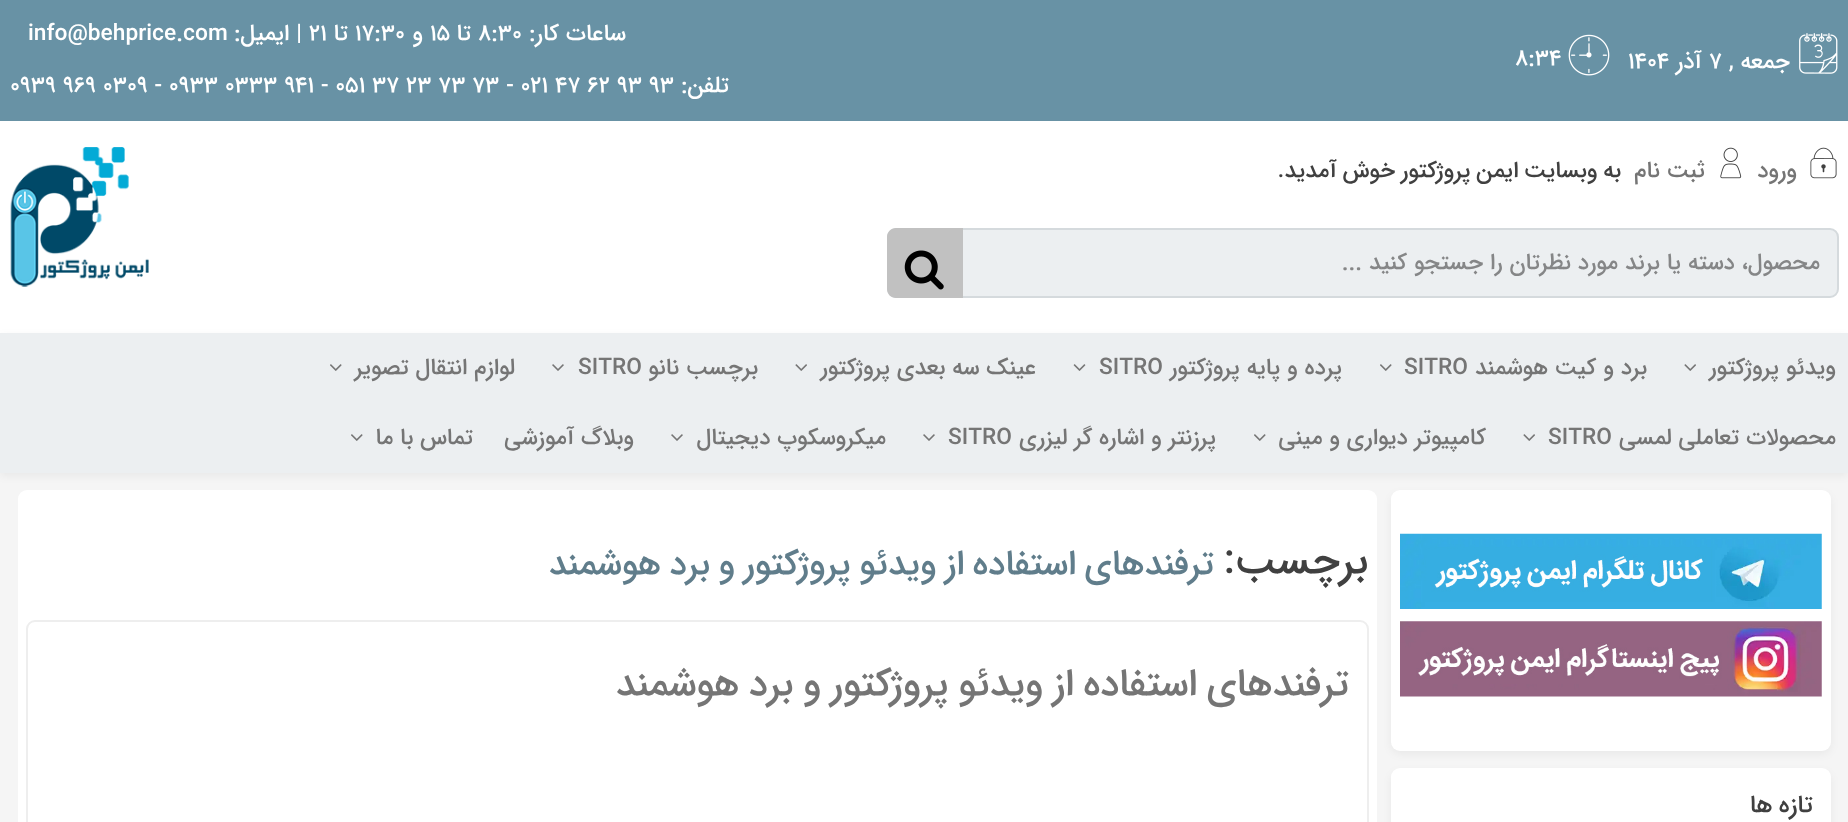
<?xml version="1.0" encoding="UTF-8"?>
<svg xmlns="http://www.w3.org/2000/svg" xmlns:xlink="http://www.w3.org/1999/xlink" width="1848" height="822">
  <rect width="100%" height="100%" fill="#f5f5f5" />
  <rect width="1848" height="121" fill="#6892a5" />
  <image x="1799" y="33" width="39" height="41" xlink:href="image1.png" />
  <image x="1568" y="34" width="42" height="42" xlink:href="image2.png" />
  <rect y="121" width="1848" height="212" fill="#ffffff" />
  <image x="1810" y="147" width="27" height="32" xlink:href="image3.png" />
  <image x="1720" y="147" width="22" height="32" xlink:href="image4.png" />
  <rect x="888" y="229" width="950" height="68" rx="8" fill="#eceff1" stroke="#d5dadd" stroke-width="2" />
  <path d="M 896 228 h 67 v 70 h -67 c -5 0 -9 -4 -9 -9 v -52 c 0 -5 4 -9 9 -9 z" fill="#c1c1c1" />
  <image x="904" y="250" width="40" height="40" xlink:href="image5.png" />
  <image x="10" y="147" width="139" height="140" xlink:href="image6.png" />
  <rect x="18" y="490" width="1359" height="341" rx="9" fill="#ffffff" />
  <rect x="1391" y="494" width="440" height="260" rx="9" fill="#000000" fill-opacity="0.05" filter="blur(4.5px)" />
  <rect x="1391" y="490" width="440" height="261" rx="9" fill="#ffffff" />
  <rect y="336" width="1848" height="140" fill="#000000" fill-opacity="0.05" filter="blur(4.5px)" />
  <rect y="333" width="1848" height="140" fill="#eceff1" />
  <image x="1684" y="364" width="12" height="7" xlink:href="image7.png" />
  <image x="1380" y="364" width="12" height="7" xlink:href="image8.png" />
  <image x="1073" y="364" width="13" height="7" xlink:href="image9.png" />
  <image x="795" y="364" width="12" height="7" xlink:href="image7.png" />
  <image x="552" y="364" width="12" height="7" xlink:href="image10.png" />
  <image x="330" y="364" width="12" height="7" xlink:href="image8.png" />
  <image x="1523" y="434" width="12" height="7" xlink:href="image7.png" />
  <image x="1254" y="434" width="12" height="7" xlink:href="image8.png" />
  <image x="923" y="434" width="12" height="7" xlink:href="image10.png" />
  <image x="671" y="434" width="12" height="7" xlink:href="image10.png" />
  <image x="351" y="434" width="12" height="7" xlink:href="image8.png" />
  <rect x="27" y="621" width="1341" height="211" rx="8" fill="none" stroke="#eeeeee" stroke-width="2" />
  <image x="1400" y="533" width="422" height="76" xlink:href="image11.png" />
  <image x="1400" y="621" width="422" height="76" xlink:href="image12.png" />
  <rect x="1391" y="772" width="440" height="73" rx="9" fill="#000000" fill-opacity="0.05" filter="blur(4.5px)" />
  <rect x="1391" y="768" width="440" height="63" rx="9" fill="#ffffff" />
  <text x="1790" y="68" style="font-family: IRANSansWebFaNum; font-size: 22.75px; font-weight: 500; direction: rtl; fill: #ffffff">جمعه ,</text>
  <text x="1709" y="68" style="font-family: IRANSansWebFaNum; font-size: 22.75px; font-weight: 500; fill: #ffffff">۷</text>
  <text x="1702" y="68" style="font-family: IRANSansWebFaNum; font-size: 22.75px; font-weight: 500; direction: rtl; fill: #ffffff">آذر</text>
  <text x="1628" y="68" style="font-family: IRANSansWebFaNum; font-size: 22.75px; font-weight: 500; fill: #ffffff">۱۴۰۴</text>
  <text x="1515" y="65" style="font-family: IRANSansWebFaNum; font-size: 22.75px; font-weight: 500; fill: #ffffff">۸:۳۴</text>
  <text x="626" y="40" style="font-family: IRANSansWebFaNum; font-size: 22.75px; font-weight: 500; direction: rtl; fill: #ffffff">ساعات کار:</text>
  <text x="478" y="40" style="font-family: IRANSansWebFaNum; font-size: 22.75px; font-weight: 500; fill: #ffffff">۸:۳۰</text>
  <text x="471" y="40" style="font-family: IRANSansWebFaNum; font-size: 22.75px; font-weight: 500; direction: rtl; fill: #ffffff">تا</text>
  <text x="430" y="40" style="font-family: IRANSansWebFaNum; font-size: 22.75px; font-weight: 500; fill: #ffffff">۱۵</text>
  <text x="423" y="40" style="font-family: IRANSansWebFaNum; font-size: 22.75px; font-weight: 500; direction: rtl; fill: #ffffff">و</text>
  <text x="355" y="40" style="font-family: IRANSansWebFaNum; font-size: 22.75px; font-weight: 500; fill: #ffffff">۱۷:۳۰</text>
  <text x="348" y="40" style="font-family: IRANSansWebFaNum; font-size: 22.75px; font-weight: 500; direction: rtl; fill: #ffffff">تا</text>
  <text x="309" y="40" style="font-family: IRANSansWebFaNum; font-size: 22.75px; font-weight: 500; fill: #ffffff">۲۱</text>
  <text x="302" y="40" style="font-family: IRANSansWebFaNum; font-size: 22.75px; font-weight: 500; direction: rtl; fill: #ffffff">| ایمیل:</text>
  <text x="28" y="40" style="font-family: IRANSansWebFaNum; font-size: 22.75px; font-weight: 500; fill: #ffffff">info@behprice.com</text>
  <text x="729" y="92" style="font-family: IRANSansWebFaNum; font-size: 22.75px; font-weight: 500; direction: rtl; fill: #ffffff">تلفن:</text>
  <text x="10" y="92" style="font-family: IRANSansWebFaNum; font-size: 22.75px; font-weight: 500; fill: #ffffff">۰۹۳۹ ۹۶۹ ۰۳۰۹ - ۰۹۳۳ ۰۳۳۳ ۹۴۱ - ۰۵۱ ۳۷ ۲۳ ۷۳ ۷۳ - ۰۲۱ ۴۷ ۶۲ ۹۳ ۹۳</text>
  <text x="1797" y="177" style="font-family: IRANSansWebFaNum; font-size: 22.75px; font-weight: 500; direction: rtl; fill: #757575">ورود</text>
  <text x="1705" y="177" style="font-family: IRANSansWebFaNum; font-size: 22.75px; font-weight: 500; direction: rtl; fill: #757575">ثبت نام</text>
  <text x="1621" y="177" word-spacing="-1.25" style="font-family: IRANSansWebFaNum; font-size: 22.75px; font-weight: 500; direction: rtl; fill: #404040">به وبسایت ایمن پروژکتور خوش آمدید</text>
  <text x="1284" y="177" style="font-family: Roboto; font-size: 22.75px; font-weight: 500; direction: rtl; fill: #404040">.</text>
  <text x="1820" y="269" style="font-family: IRANSansWebFaNum; font-size: 22.75px; font-weight: 500; direction: rtl; fill: #858687">محصول، دسته یا برند مورد نظرتان را جستجو کنید ...</text>
  <text x="1836" y="374" style="font-family: IRANSansWebFaNum; font-size: 22.75px; font-weight: 500; direction: rtl; fill: #757575">ویدئو پروژکتور</text>
  <text x="1647" y="374" style="font-family: IRANSansWebFaNum; font-size: 22.75px; font-weight: 500; direction: rtl; fill: #757575">برد و کیت هوشمند</text>
  <text x="1404" y="374" style="font-family: IRANSansWebFaNum; font-size: 22.75px; font-weight: 500; fill: #757575">SITRO</text>
  <text x="1342" y="374" style="font-family: IRANSansWebFaNum; font-size: 22.75px; font-weight: 500; direction: rtl; fill: #757575">پرده و پایه پروژکتور</text>
  <text x="1099" y="374" style="font-family: IRANSansWebFaNum; font-size: 22.75px; font-weight: 500; fill: #757575">SITRO</text>
  <text x="1036" y="374" style="font-family: IRANSansWebFaNum; font-size: 22.75px; font-weight: 500; direction: rtl; fill: #757575">عینک سه بعدی پروژکتور</text>
  <text x="758" y="374" style="font-family: IRANSansWebFaNum; font-size: 22.75px; font-weight: 500; direction: rtl; fill: #757575">برچسب نانو</text>
  <text x="578" y="374" style="font-family: IRANSansWebFaNum; font-size: 22.75px; font-weight: 500; fill: #757575">SITRO</text>
  <text x="515" y="374" style="font-family: IRANSansWebFaNum; font-size: 22.75px; font-weight: 500; direction: rtl; fill: #757575">لوازم انتقال تصویر</text>
  <text x="1836" y="444" style="font-family: IRANSansWebFaNum; font-size: 22.75px; font-weight: 500; direction: rtl; fill: #757575">محصولات تعاملی لمسی</text>
  <text x="1548" y="444" style="font-family: IRANSansWebFaNum; font-size: 22.75px; font-weight: 500; fill: #757575">SITRO</text>
  <text x="1486" y="444" style="font-family: IRANSansWebFaNum; font-size: 22.75px; font-weight: 500; direction: rtl; fill: #757575">کامپیوتر دیواری و مینی</text>
  <text x="1216" y="444" style="font-family: IRANSansWebFaNum; font-size: 22.75px; font-weight: 500; direction: rtl; fill: #757575">پرزنتر و اشاره گر لیزری</text>
  <text x="948" y="444" style="font-family: IRANSansWebFaNum; font-size: 22.75px; font-weight: 500; fill: #757575">SITRO</text>
  <text x="886" y="444" style="font-family: IRANSansWebFaNum; font-size: 22.75px; font-weight: 500; direction: rtl; fill: #757575">میکروسکوپ دیجیتال</text>
  <text x="634" y="444" style="font-family: IRANSansWebFaNum; font-size: 22.75px; font-weight: 500; direction: rtl; fill: #757575">وبلاگ آموزشی</text>
  <text x="473" y="444" style="font-family: IRANSansWebFaNum; font-size: 22.75px; font-weight: 500; direction: rtl; fill: #757575">تماس با ما</text>
  <text x="1368" y="573" style="font-family: IRANSansWebFaNum; font-size: 42px; font-weight: 500; direction: rtl; fill: #404040">برچسب</text>
  <text x="1235" y="573" style="font-family: Roboto; font-size: 42px; font-weight: 500; direction: rtl; fill: #404040">:</text>
  <text x="1214" y="574" word-spacing="-2" style="font-family: IRANSansWebFaNum; font-size: 35px; font-weight: 500; direction: rtl; fill: #607d8b">ترفندهای استفاده از ویدئو پروژکتور و برد هوشمند</text>
  <text x="1349" y="695" word-spacing="-2" style="font-family: IRANSansWebFaNum; font-size: 38.5px; font-weight: 500; direction: rtl; fill: #757575">ترفندهای استفاده از ویدئو پروژکتور و برد هوشمند</text>
  <text x="1813" y="812" word-spacing="-1" style="font-family: IRANSansWebFaNum; font-size: 24.5px; font-weight: 500; direction: rtl; fill: #404040">تازه ها</text>
</svg>
